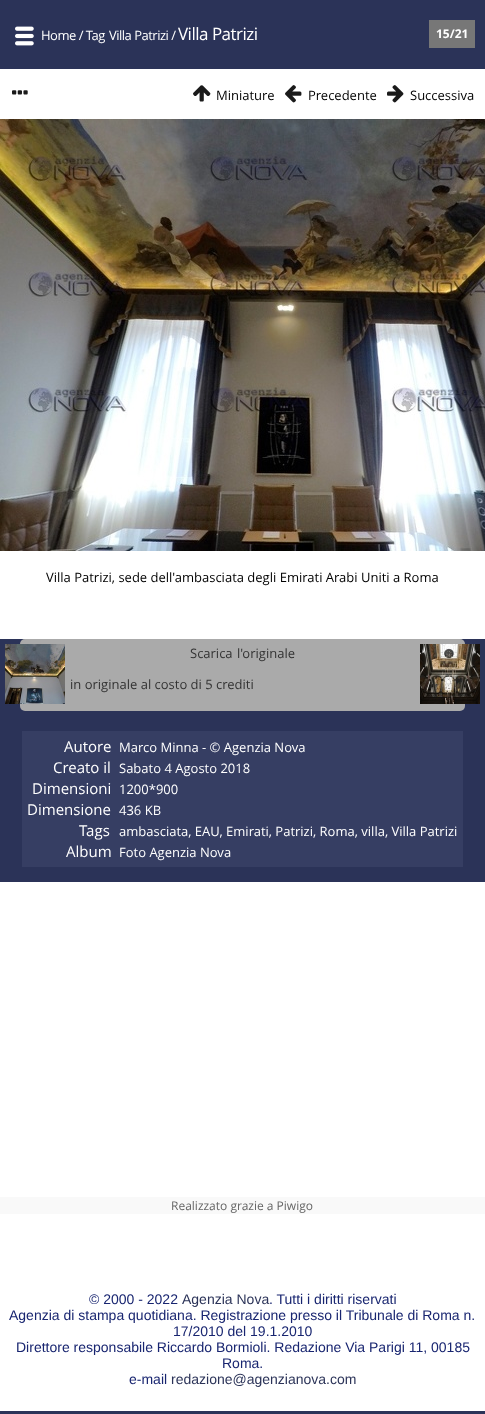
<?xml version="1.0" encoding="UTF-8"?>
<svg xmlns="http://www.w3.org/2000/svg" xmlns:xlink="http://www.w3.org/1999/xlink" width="485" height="1414">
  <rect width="100%" height="100%" fill="#ffffff" />
  <rect width="485" height="69" fill="#2b3358" />
  <image x="15" y="26" width="19" height="20" xlink:href="image1.png" />
  <rect x="429" y="20" width="46" height="28" fill="#777777" />
  <image x="0" y="119" width="485" height="432" xlink:href="image2.png" />
  <rect y="639" width="485" height="243" fill="#2b3358" />
  <rect x="20" y="639" width="445" height="72" rx="5" fill="#aaaaaa" />
  <image x="5" y="644" width="60" height="60" xlink:href="image3.png" />
  <image x="420" y="644" width="60" height="60" xlink:href="image4.png" />
  <rect x="22" y="731" width="441" height="136" fill="#363e63" />
  <rect y="1197" width="485" height="17" fill="#f9f9f9" />
  <rect y="1411" width="485" height="3" fill="#2b3358" />
  <text x="41" y="40" style="font-family: Open Sans; font-size: 13px; letter-spacing: -0.5px; fill: #ffffff">Home / Tag</text>
  <text x="109" y="40" style="font-family: Open Sans; font-size: 13px; letter-spacing: -0.5px; fill: #ffffff">Villa Patrizi /</text>
  <text x="178" y="40" style="font-family: Open Sans; font-size: 17px; letter-spacing: -0.5px; fill: #ffffff">Villa Patrizi</text>
  <text x="436" y="38" style="font-family: Open Sans; font-size: 12px; font-weight: bold; fill: #ffffff">15/21</text>
  <text x="12" y="100" style="font-family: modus; font-size: 20px; fill: #1a1a1a">…</text>
  <text x="193" y="100" style="font-family: modus; font-size: 20px; fill: #1a1a1a">↑</text>
  <text x="216" y="100" style="font-family: Open Sans; font-size: 13px; fill: #000000">Miniature</text>
  <text x="285" y="100" style="font-family: modus; font-size: 20px; fill: #1a1a1a">←</text>
  <text x="308" y="100" style="font-family: Open Sans; font-size: 13px; fill: #000000">Precedente</text>
  <text x="387" y="100" style="font-family: modus; font-size: 20px; fill: #1a1a1a">→</text>
  <text x="410" y="100" style="font-family: Open Sans; font-size: 13px; fill: #000000">Successiva</text>
  <text x="46" y="582" style="font-family: Open Sans; font-size: 13px; fill: #000000">Villa Patrizi, sede dell'ambasciata degli Emirati Arabi Uniti a Roma</text>
  <text x="190" y="658" word-spacing="1" style="font-family: Open Sans; font-size: 13px; fill: #333333">Scarica l'originale</text>
  <text x="70" y="689" style="font-family: Open Sans; font-size: 13px; fill: #333333">in originale al costo di 5 crediti</text>
  <text x="64" y="752" style="font-family: Open Sans; font-size: 15px; fill: #ffffff">Autore</text>
  <text x="119" y="752" style="font-family: Open Sans; font-size: 13px; fill: #ffffff">Marco Minna - © Agenzia Nova</text>
  <text x="53" y="773" style="font-family: Open Sans; font-size: 15px; fill: #ffffff">Creato il</text>
  <text x="119" y="773" style="font-family: Open Sans; font-size: 13px; fill: #ffffff">Sabato 4 Agosto 2018</text>
  <text x="32" y="794" style="font-family: Open Sans; font-size: 15px; fill: #ffffff">Dimensioni</text>
  <text x="119" y="794" style="font-family: Open Sans; font-size: 13px; fill: #ffffff">1200*900</text>
  <text x="27" y="815" style="font-family: Open Sans; font-size: 15px; fill: #ffffff">Dimensione</text>
  <text x="119" y="815" style="font-family: Open Sans; font-size: 13px; fill: #ffffff">436 KB</text>
  <text x="79" y="836" style="font-family: Open Sans; font-size: 15px; fill: #ffffff">Tags</text>
  <text x="119" y="836" style="font-family: Open Sans; font-size: 13px; fill: #ffffff">ambasciata, EAU, Emirati, Patrizi, Roma, villa, Villa Patrizi</text>
  <text x="66" y="857" style="font-family: Open Sans; font-size: 15px; fill: #ffffff">Album</text>
  <text x="119" y="857" style="font-family: Open Sans; font-size: 13px; fill: #ffffff">Foto Agenzia Nova</text>
  <text x="171" y="1210" style="font-family: Open Sans; font-size: 12px; fill: #666666">Realizzato grazie a Piwigo</text>
  <text x="89" y="1304" style="font-family: Liberation Sans; font-size: 14px; fill: #182570">© 2000 - 2022</text>
  <text x="182" y="1304" style="font-family: Liberation Sans; font-size: 14px; fill: #2b3358">Agenzia Nova</text>
  <text x="269" y="1304" style="font-family: Liberation Sans; font-size: 14px; fill: #182570">. Tutti i diritti riservati</text>
  <text x="9" y="1320" style="font-family: Liberation Sans; font-size: 14px; fill: #182570">Agenzia di stampa quotidiana. Registrazione presso il Tribunale di Roma n.</text>
  <text x="173" y="1336" style="font-family: Liberation Sans; font-size: 14px; fill: #182570">17/2010 del 19.1.2010</text>
  <text x="16" y="1352" style="font-family: Liberation Sans; font-size: 14px; fill: #182570">Direttore responsabile Riccardo Bormioli. Redazione Via Parigi 11, 00185</text>
  <text x="222" y="1368" style="font-family: Liberation Sans; font-size: 14px; fill: #182570">Roma.</text>
  <text x="129" y="1384" style="font-family: Liberation Sans; font-size: 14px; fill: #182570">e-mail</text>
  <text x="171" y="1384" style="font-family: Liberation Sans; font-size: 14px; fill: #2b3358">redazione@agenzianova.com</text>
</svg>
